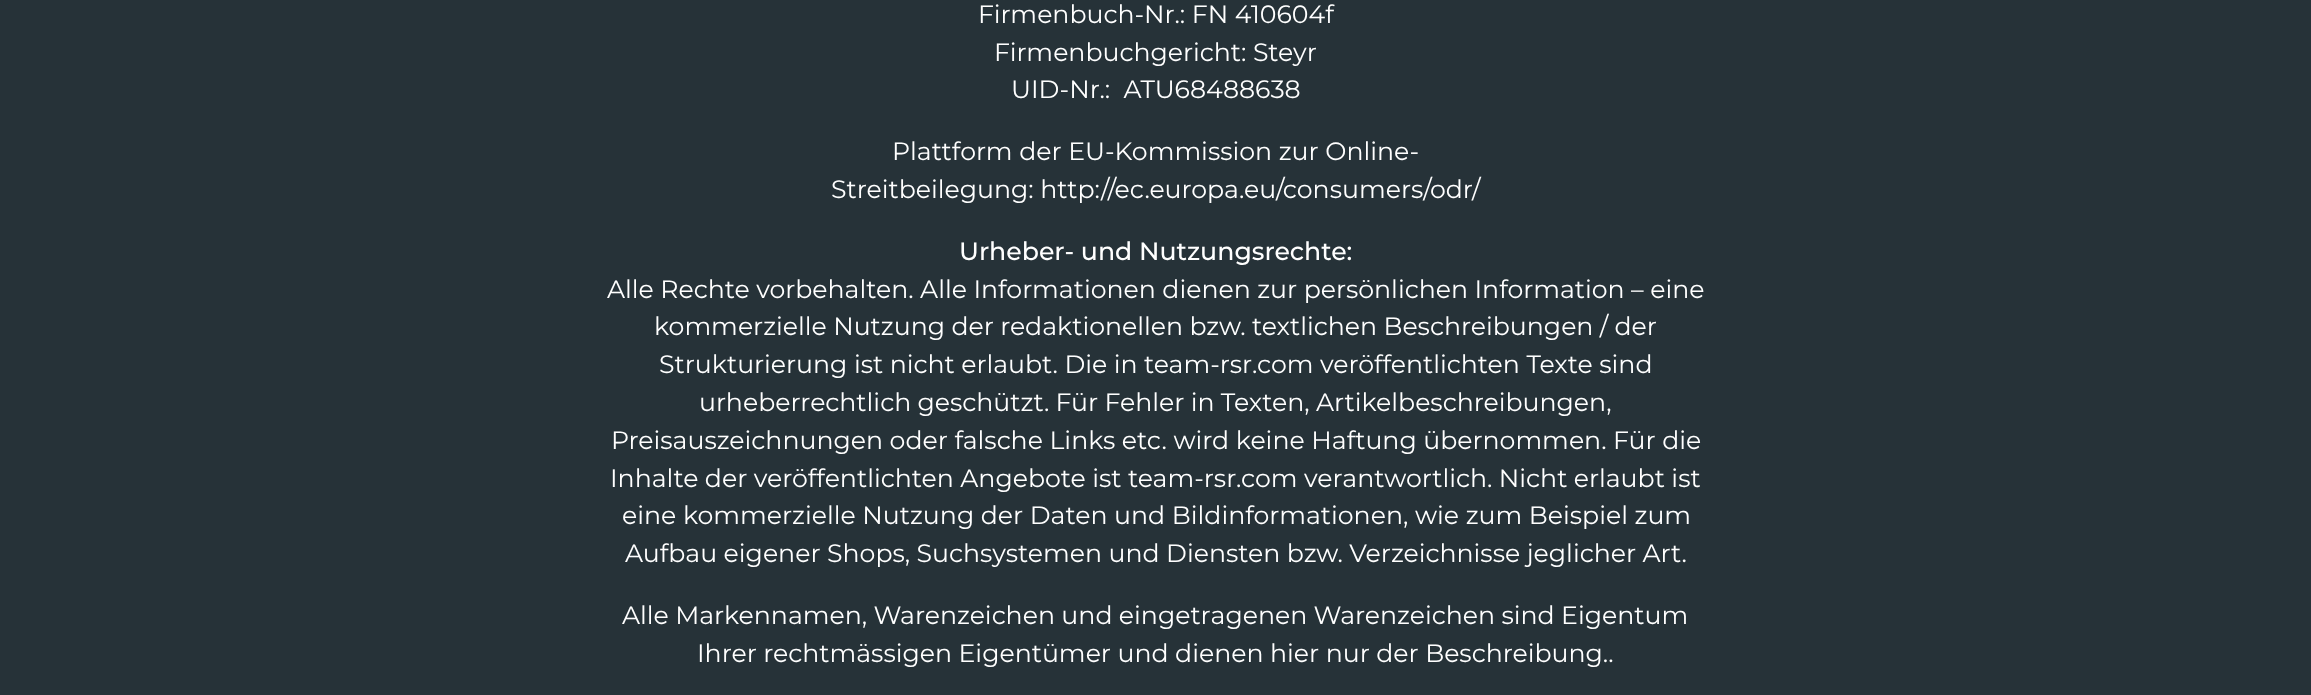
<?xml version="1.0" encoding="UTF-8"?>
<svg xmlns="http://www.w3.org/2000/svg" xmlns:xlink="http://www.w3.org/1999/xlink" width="2311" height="695">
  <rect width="100%" height="100%" fill="#263238" />
  <text x="978" y="23" style="font-family: Montserrat; font-size: 25.2px; fill: #ffffff">Firmenbuch-Nr.: FN 410604f</text>
  <text x="994" y="61" style="font-family: Montserrat; font-size: 25.2px; fill: #ffffff">Firmenbuchgericht: Steyr</text>
  <text x="1011" y="98" style="font-family: Montserrat; font-size: 25.2px; fill: #ffffff" xml:space="preserve">UID-Nr.:  ATU68488638</text>
  <text x="892" y="160" style="font-family: Montserrat; font-size: 25.2px; fill: #ffffff">Plattform der EU-Kommission zur Online-</text>
  <text x="831" y="198" style="font-family: Montserrat; font-size: 25.2px; fill: #ffffff">Streitbeilegung: http://ec.europa.eu/consumers/odr/</text>
  <text x="959" y="260" style="font-family: Montserrat; font-size: 25.2px; font-weight: 500; fill: #ffffff">Urheber- und Nutzungsrechte:</text>
  <text x="607" y="298" word-spacing="-0.1" style="font-family: Montserrat; font-size: 25.2px; fill: #ffffff">Alle Rechte vorbehalten. Alle Informationen dienen zur persönlichen Information – eine</text>
  <text x="654" y="335" word-spacing="-0.25" style="font-family: Montserrat; font-size: 25.2px; fill: #ffffff">kommerzielle Nutzung der redaktionellen bzw. textlichen Beschreibungen / der</text>
  <text x="659" y="373" word-spacing="-0.1" style="font-family: Montserrat; font-size: 25.2px; fill: #ffffff">Strukturierung ist nicht erlaubt. Die in team-rsr.com veröffentlichten Texte sind</text>
  <text x="699" y="411" word-spacing="-0.25" style="font-family: Montserrat; font-size: 25.2px; fill: #ffffff">urheberrechtlich geschützt. Für Fehler in Texten, Artikelbeschreibungen,</text>
  <text x="611" y="449" style="font-family: Montserrat; font-size: 25.2px; fill: #ffffff">Preisauszeichnungen oder falsche Links etc. wird keine Haftung übernommen. Für die</text>
  <text x="610" y="487" word-spacing="-0.1" style="font-family: Montserrat; font-size: 25.2px; fill: #ffffff">Inhalte der veröffentlichten Angebote ist team-rsr.com verantwortlich. Nicht erlaubt ist</text>
  <text x="622" y="524" style="font-family: Montserrat; font-size: 25.2px; fill: #ffffff">eine kommerzielle Nutzung der Daten und Bildinformationen, wie zum Beispiel zum</text>
  <text x="625" y="562" word-spacing="-0.1" style="font-family: Montserrat; font-size: 25.2px; fill: #ffffff">Aufbau eigener Shops, Suchsystemen und Diensten bzw. Verzeichnisse jeglicher Art.</text>
  <text x="622" y="624" word-spacing="-0.25" style="font-family: Montserrat; font-size: 25.2px; fill: #ffffff">Alle Markennamen, Warenzeichen und eingetragenen Warenzeichen sind Eigentum</text>
  <text x="697" y="662" word-spacing="-0.1" style="font-family: Montserrat; font-size: 25.2px; fill: #ffffff">Ihrer rechtmässigen Eigentümer und dienen hier nur der Beschreibung..</text>
</svg>
